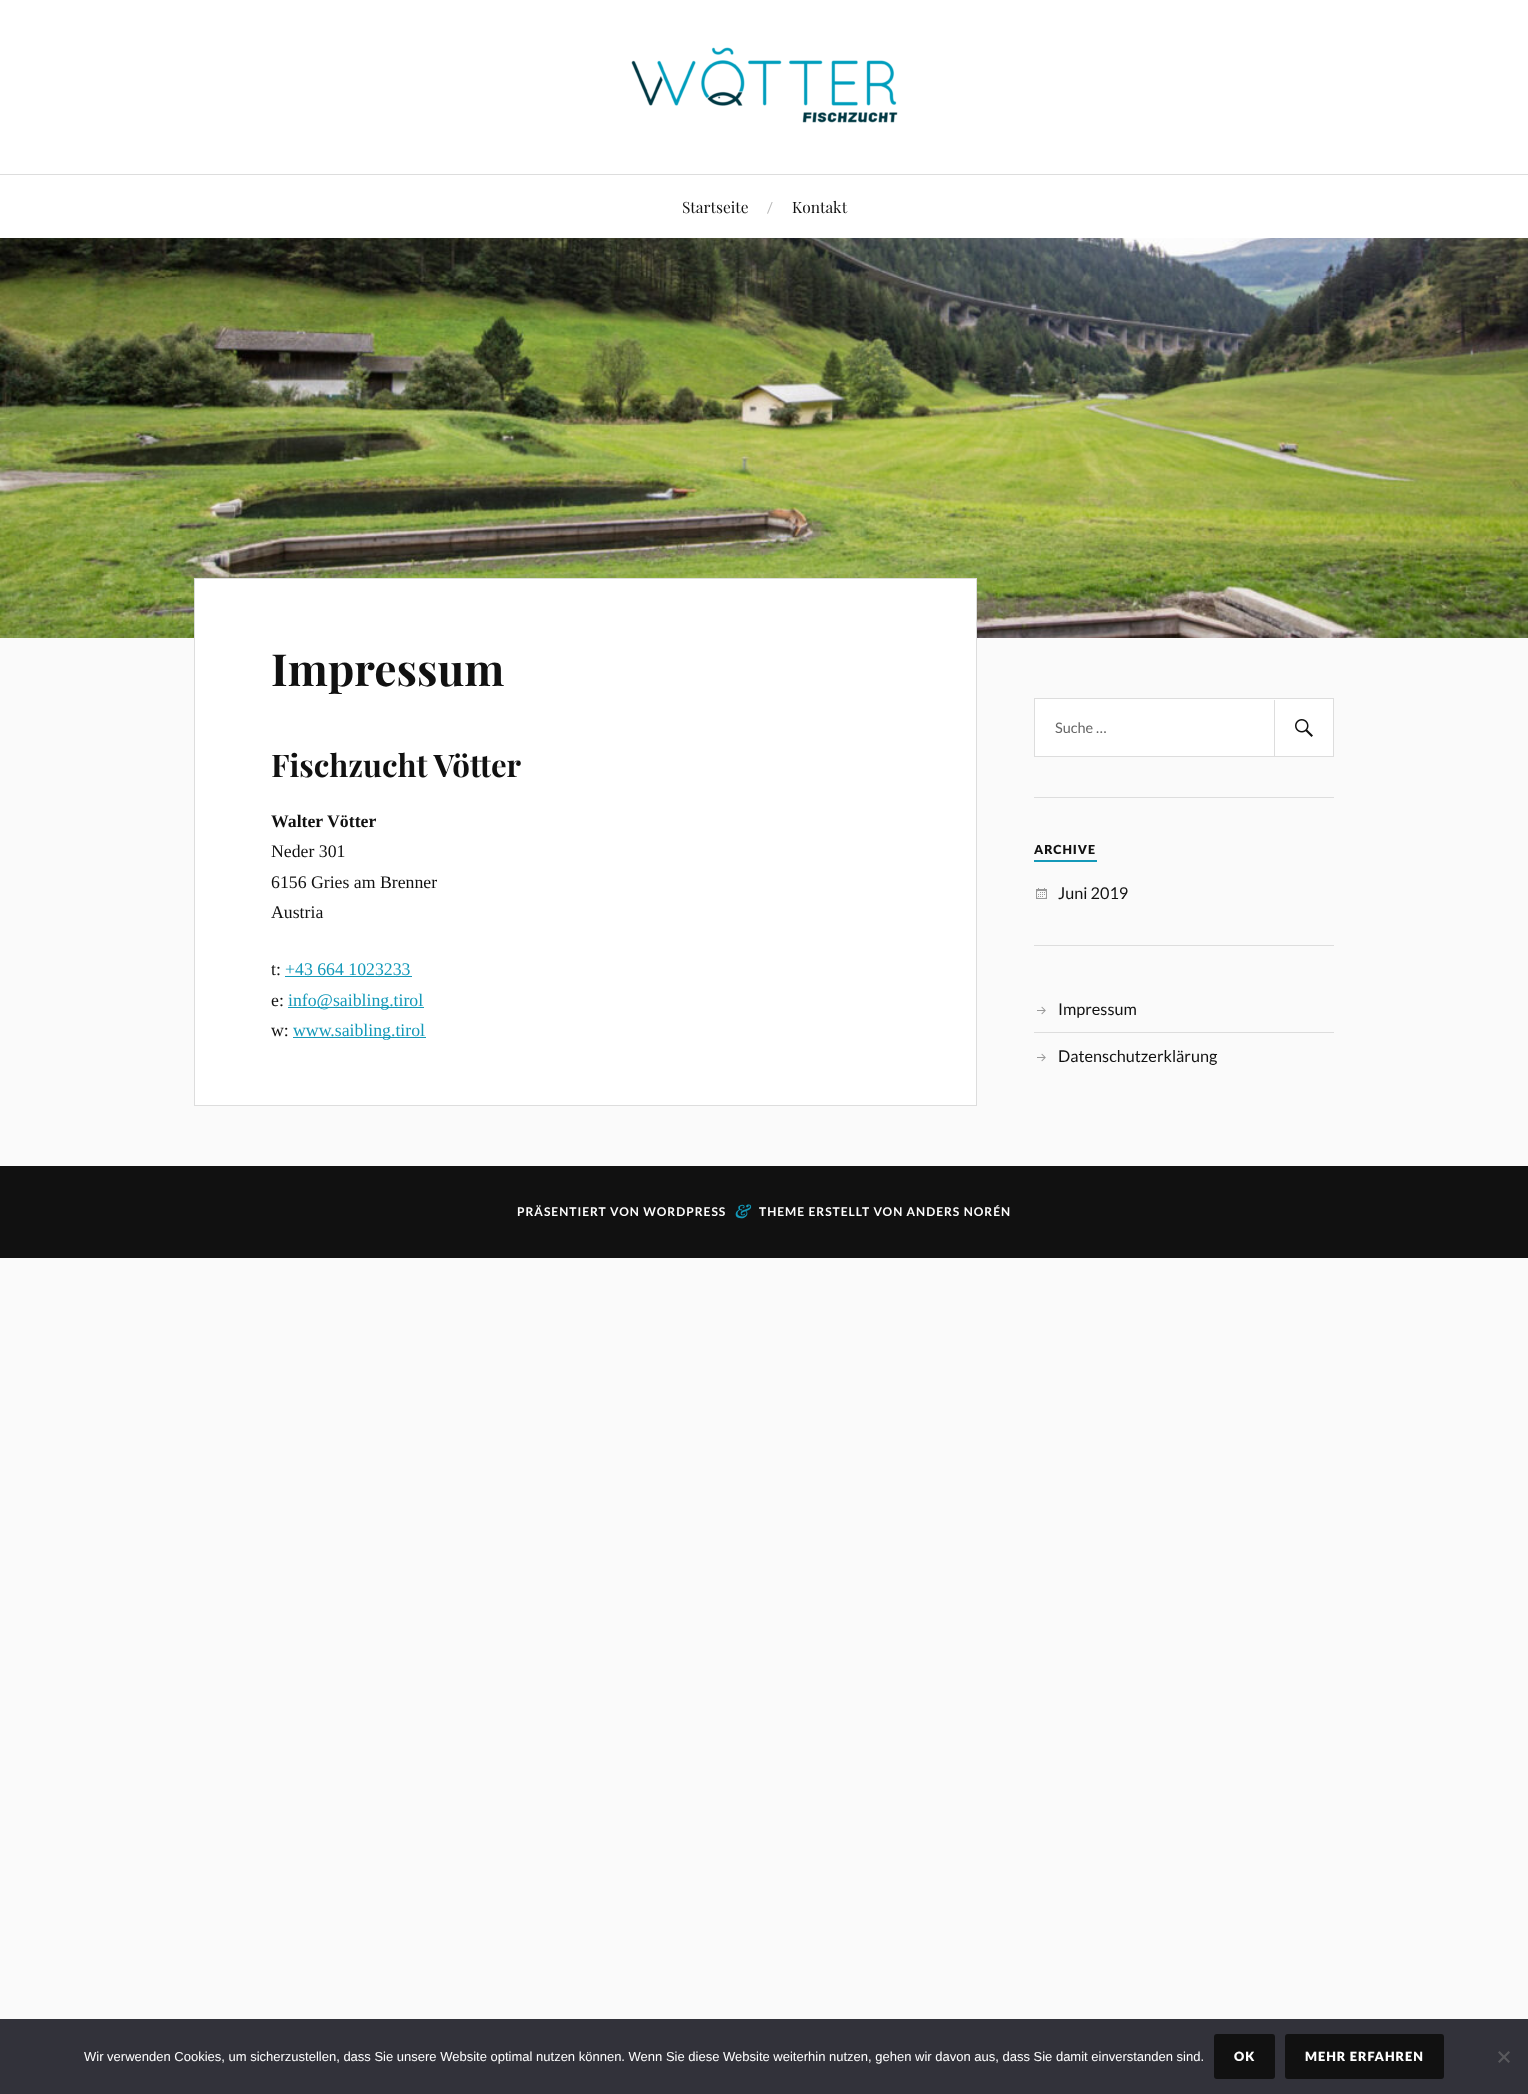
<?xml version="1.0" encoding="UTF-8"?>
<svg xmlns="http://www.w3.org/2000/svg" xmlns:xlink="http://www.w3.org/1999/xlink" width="1528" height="2094">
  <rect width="100%" height="100%" fill="#fafafa" />
  <rect width="1528" height="174" fill="#ffffff" />
  <image x="631" y="47" width="267" height="76" xlink:href="image1.png" />
  <rect y="175" width="1528" height="63" fill="#ffffff" />
  <rect y="174" width="1528" height="1" fill="#dddddd" />
  <image x="0" y="238" width="1528" height="400" xlink:href="image2.png" />
  <rect x="194.5" y="578.5" width="782" height="527" fill="#ffffff" stroke="#dddddd" />
  <rect x="285" y="976" width="127" height="1" fill="#1499b9" />
  <rect x="288" y="1007" width="136" height="1" fill="#1499b9" />
  <rect x="293" y="1037" width="133" height="1" fill="#1499b9" />
  <rect x="1034.5" y="698.5" width="299" height="58" fill="#ffffff" stroke="#dddddd" />
  <rect x="1274" y="700" width="1" height="56" fill="#dddddd" />
  <image x="1295" y="719" width="18" height="18" xlink:href="image3.png" />
  <rect x="1034" y="797" width="300" height="1" fill="#dddddd" />
  <rect x="1034" y="860" width="63" height="2" fill="#1499b9" />
  <image x="1036" y="888" width="11" height="11" xlink:href="image4.png" />
  <rect x="1034" y="945" width="300" height="1" fill="#dddddd" />
  <rect x="1034" y="1032" width="300" height="1" fill="#dddddd" />
  <image x="1037" y="1006" width="9" height="9" xlink:href="image5.png" />
  <image x="1037" y="1053" width="9" height="9" xlink:href="image5.png" />
  <rect y="1166" width="1528" height="92" fill="#111111" />
  <rect y="2019" width="1528" height="75" fill="#32323a" />
  <rect x="1214" y="2034" width="61" height="45" rx="3" fill="#111111" />
  <rect x="1285" y="2034" width="159" height="45" rx="3" fill="#111111" />
  <path d="M 1508.5 2051 l 1.5 1.5 l -10.5 10.5 l -1.5 -1.5 z" fill="#59595d" />
  <path d="M 1498 2052.5 l 1.5 -1.5 l 10.5 10.5 l -1.5 1.5 z" fill="#59595d" />
  <text x="682" y="213" style="font-family: Playfair Display; font-size: 15.5px; fill: #111111">Startseite</text>
  <text x="767" y="213" style="font-family: Lato; font-size: 15px; fill: #bbbbbb">/</text>
  <text x="792" y="213" style="font-family: Playfair Display; font-size: 15.5px; fill: #111111">Kontakt</text>
  <text x="271" y="686" style="font-family: Playfair Display; font-size: 44.25px; font-weight: bold; fill: #111111">Impressum</text>
  <text x="271" y="777" style="font-family: Playfair Display; font-size: 31.25px; font-weight: bold; fill: #111111">Fischzucht Vötter</text>
  <text x="271" y="827" style="font-family: Liberation Serif; font-size: 17.75px; font-weight: bold; fill: #111111">Walter Vötter</text>
  <text x="271" y="857" style="font-family: Liberation Serif; font-size: 17.75px; fill: #111111">Neder 301</text>
  <text x="271" y="888" style="font-family: Liberation Serif; font-size: 17.75px; fill: #111111">6156 Gries am Brenner</text>
  <text x="271" y="918" style="font-family: Liberation Serif; font-size: 17.75px; fill: #111111">Austria</text>
  <text x="271" y="975" style="font-family: Liberation Serif; font-size: 17.75px; fill: #111111">t:</text>
  <text x="285" y="975" style="font-family: Liberation Serif; font-size: 17.75px; fill: #1499b9">+43 664 1023233</text>
  <text x="271" y="1006" style="font-family: Liberation Serif; font-size: 17.75px; fill: #111111">e:</text>
  <text x="288" y="1006" style="font-family: Liberation Serif; font-size: 17.75px; fill: #1499b9">info@saibling.tirol</text>
  <text x="271" y="1036" style="font-family: Liberation Serif; font-size: 17.75px; fill: #111111">w:</text>
  <text x="293" y="1036" style="font-family: Liberation Serif; font-size: 17.75px; fill: #1499b9">www.saibling.tirol</text>
  <text x="1055" y="733" style="font-family: Lato; font-size: 14.5px; fill: #666666">Suche …</text>
  <text x="1034" y="854" style="font-family: Lato; font-size: 12.5px; font-weight: 900; letter-spacing: 1px; fill: #111111">ARCHIVE</text>
  <text x="1058" y="899" style="font-family: Lato; font-size: 16.25px; fill: #111111">Juni 2019</text>
  <text x="1058" y="1015" style="font-family: Lato; font-size: 16.25px; fill: #111111">Impressum</text>
  <text x="1058" y="1062" style="font-family: Lato; font-size: 16.25px; fill: #111111">Datenschutzerklärung</text>
  <text x="517" y="1216" style="font-family: Lato; font-size: 12px; font-weight: bold; letter-spacing: 1px; fill: #ffffff">PRÄSENTIERT VON WORDPRESS</text>
  <text x="735" y="1218" style="font-family: Playfair Display; font-size: 18px; font-weight: bold; font-style: italic; letter-spacing: 1px; fill: #1499b9">&amp;</text>
  <text x="759" y="1216" style="font-family: Lato; font-size: 12px; font-weight: bold; letter-spacing: 1px; fill: #ffffff">THEME ERSTELLT VON ANDERS NORÉN</text>
  <text x="84" y="2061" style="font-family: Liberation Sans; font-size: 13px; fill: #ffffff">Wir verwenden Cookies, um sicherzustellen, dass Sie unsere Website optimal nutzen können. Wenn Sie diese Website weiterhin nutzen, gehen wir davon aus, dass Sie damit einverstanden sind.</text>
  <text x="1234" y="2061" style="font-family: Lato; font-size: 12.75px; font-weight: 900; letter-spacing: 1px; fill: #ffffff">OK</text>
  <text x="1305" y="2061" style="font-family: Lato; font-size: 12.75px; font-weight: 900; letter-spacing: 1px; fill: #ffffff">MEHR ERFAHREN</text>
</svg>
